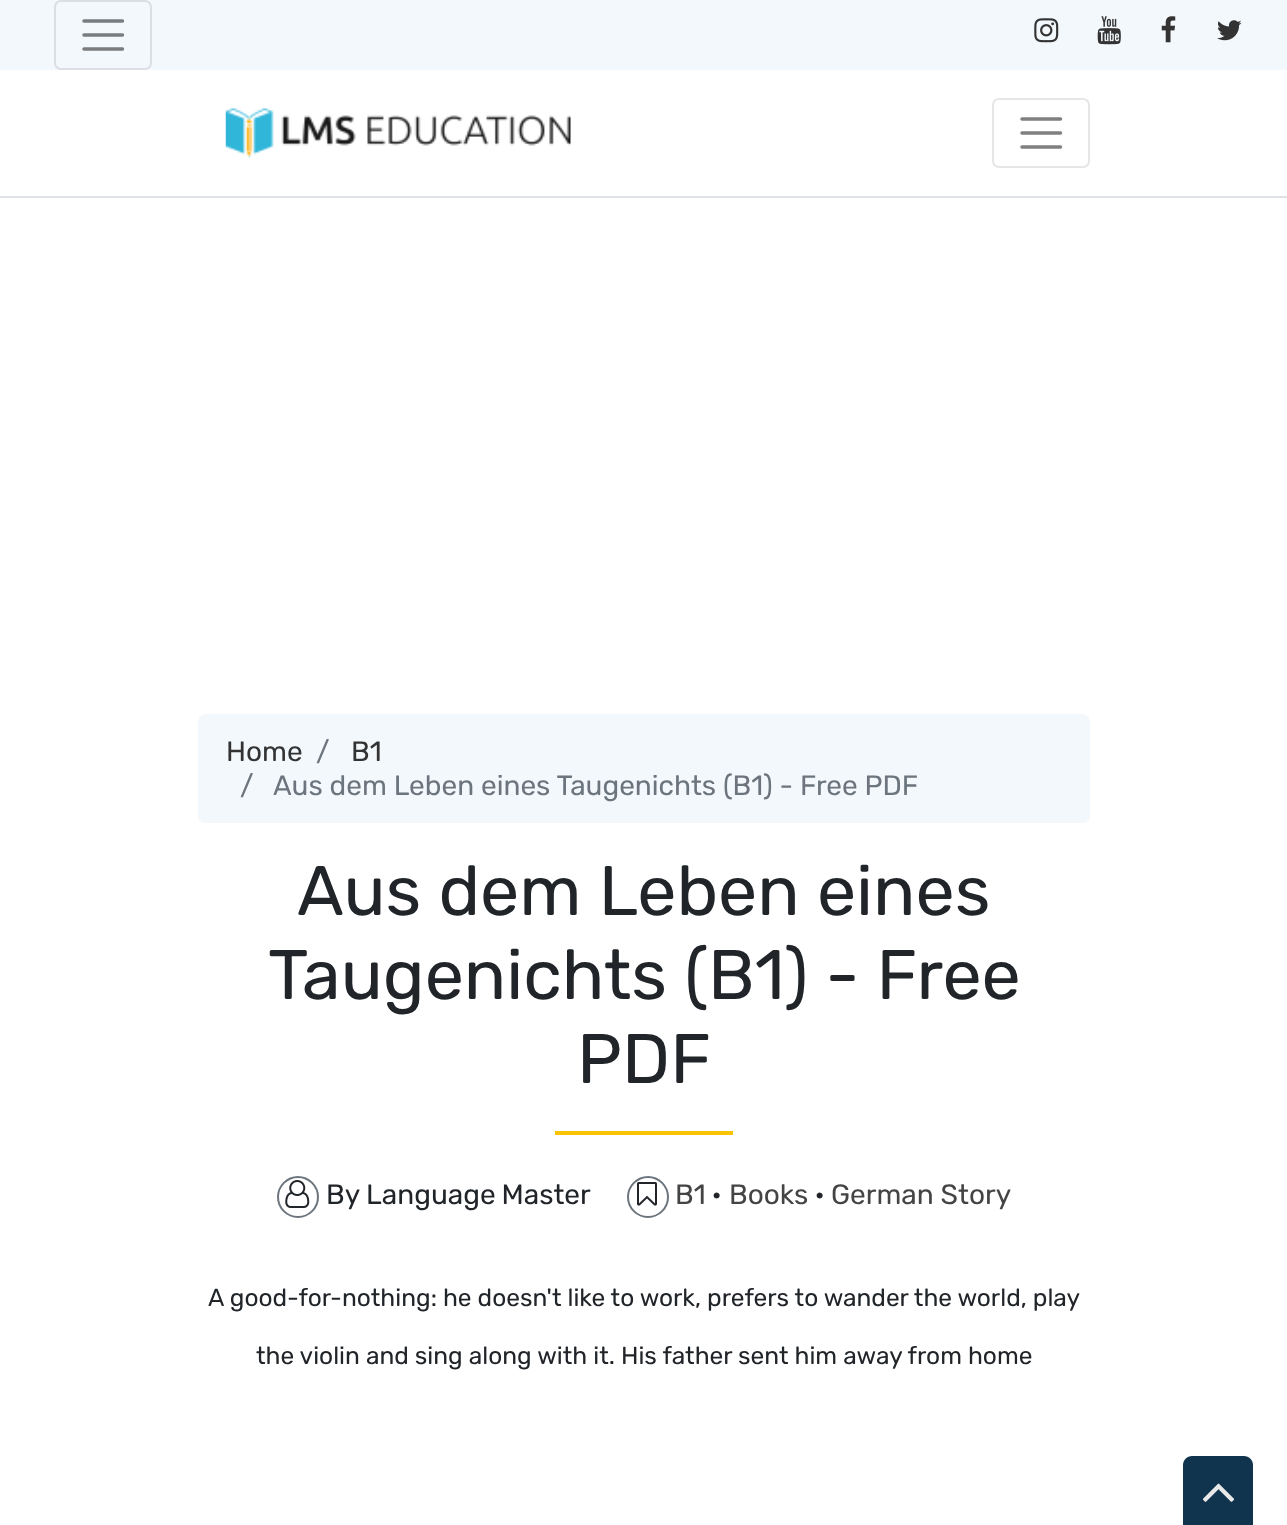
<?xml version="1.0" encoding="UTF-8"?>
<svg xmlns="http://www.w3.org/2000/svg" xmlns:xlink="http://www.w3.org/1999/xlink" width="1287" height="1525">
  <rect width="100%" height="100%" fill="#ffffff" />
  <rect width="1287" height="70" fill="#f3f8fc" />
  <rect x="55" y="1" width="96" height="68" rx="6" fill="none" stroke="#dbdfe3" stroke-width="2" />
  <path d="M 84 21 h 38.5 m -38.5 14 h 38.5 m -38.5 14 h 38.5" fill="none" stroke="#7a7c7e" stroke-width="3.5" stroke-linecap="round" />
  <image x="1034" y="18" width="25" height="25" xlink:href="image1.png" />
  <image x="1097" y="16" width="24" height="29" xlink:href="image2.png" />
  <image x="1161" y="16" width="15" height="27" xlink:href="image3.png" />
  <image x="1217" y="20" width="25" height="21" xlink:href="image4.png" />
  <rect y="196" width="1287" height="2" fill="#dee2e6" />
  <image x="225" y="108" width="346" height="50" xlink:href="image5.png" />
  <rect x="993" y="99" width="96" height="68" rx="6" fill="none" stroke="#e6e6e6" stroke-width="2" />
  <path d="M 1022 119 h 38.5 m -38.5 14 h 38.5 m -38.5 14 h 38.5" fill="none" stroke="#808080" stroke-width="3.5" stroke-linecap="round" />
  <rect x="198" y="714" width="892" height="109" rx="7" fill="#f3f8fc" />
  <rect x="555" y="1131" width="178" height="4" fill="#fac300" />
  <circle cx="298" cy="1197" r="20" fill="none" stroke="#6c757d" stroke-width="2" />
  <image x="285" y="1180" width="25" height="28" xlink:href="image6.png" />
  <circle cx="648" cy="1197" r="20" fill="none" stroke="#6c757d" stroke-width="2" />
  <image x="637" y="1182" width="20" height="24" xlink:href="image7.png" />
  <path d="M 1192 1456 h 52 c 5 0 9 4 9 9 v 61 h -70 v -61 c 0 -5 4 -9 9 -9 z" fill="#10344d" />
  <image x="1202" y="1483" width="33" height="19" xlink:href="image8.png" />
  <text x="226" y="761" style="font-family: Rubik; font-size: 28px; font-weight: 300; fill: #333333">Home</text>
  <text x="316" y="761" style="font-family: Rubik; font-size: 28px; font-weight: 300; fill: #6c757d">/</text>
  <text x="351" y="761" style="font-family: Rubik; font-size: 28px; font-weight: 300; fill: #333333">B1</text>
  <text x="240" y="795" style="font-family: Rubik; font-size: 28px; font-weight: 300; fill: #6c757d">/</text>
  <text x="273" y="795" style="font-family: Rubik; font-size: 28px; font-weight: 300; fill: #6c757d">Aus dem Leben eines Taugenichts (B1) - Free PDF</text>
  <text x="297" y="915" style="font-family: Rubik; font-size: 70px; font-weight: 300; fill: #212529">Aus dem Leben eines</text>
  <text x="268" y="999" style="font-family: Rubik; font-size: 70px; font-weight: 300; fill: #212529">Taugenichts (B1) - Free</text>
  <text x="577" y="1083" style="font-family: Rubik; font-size: 70px; font-weight: 300; fill: #212529">PDF</text>
  <text x="326" y="1204" style="font-family: Rubik; font-size: 28px; font-weight: 300; fill: #212529">By</text>
  <text x="366" y="1204" word-spacing="-1" style="font-family: Rubik; font-size: 28px; font-weight: 300; fill: #212529">Language Master</text>
  <text x="675" y="1204" style="font-family: Rubik; font-size: 28px; font-weight: 300; fill: #444444">B1</text>
  <text x="712" y="1204" style="font-family: Rubik; font-size: 28px; font-weight: 300; fill: #212529">·</text>
  <text x="729" y="1204" style="font-family: Rubik; font-size: 28px; font-weight: 300; fill: #444444">Books</text>
  <text x="815" y="1204" style="font-family: Rubik; font-size: 28px; font-weight: 300; fill: #212529">·</text>
  <text x="831" y="1204" style="font-family: Rubik; font-size: 28px; font-weight: 300; fill: #444444">German Story</text>
  <text x="208" y="1306" style="font-family: Rubik; font-size: 24.5px; font-weight: 300; fill: #212529">A good-for-nothing: he doesn't like to work, prefers to wander the world, play</text>
  <text x="256" y="1364" style="font-family: Rubik; font-size: 24.5px; font-weight: 300; fill: #212529">the violin and sing along with it. His father sent him away from home</text>
</svg>
